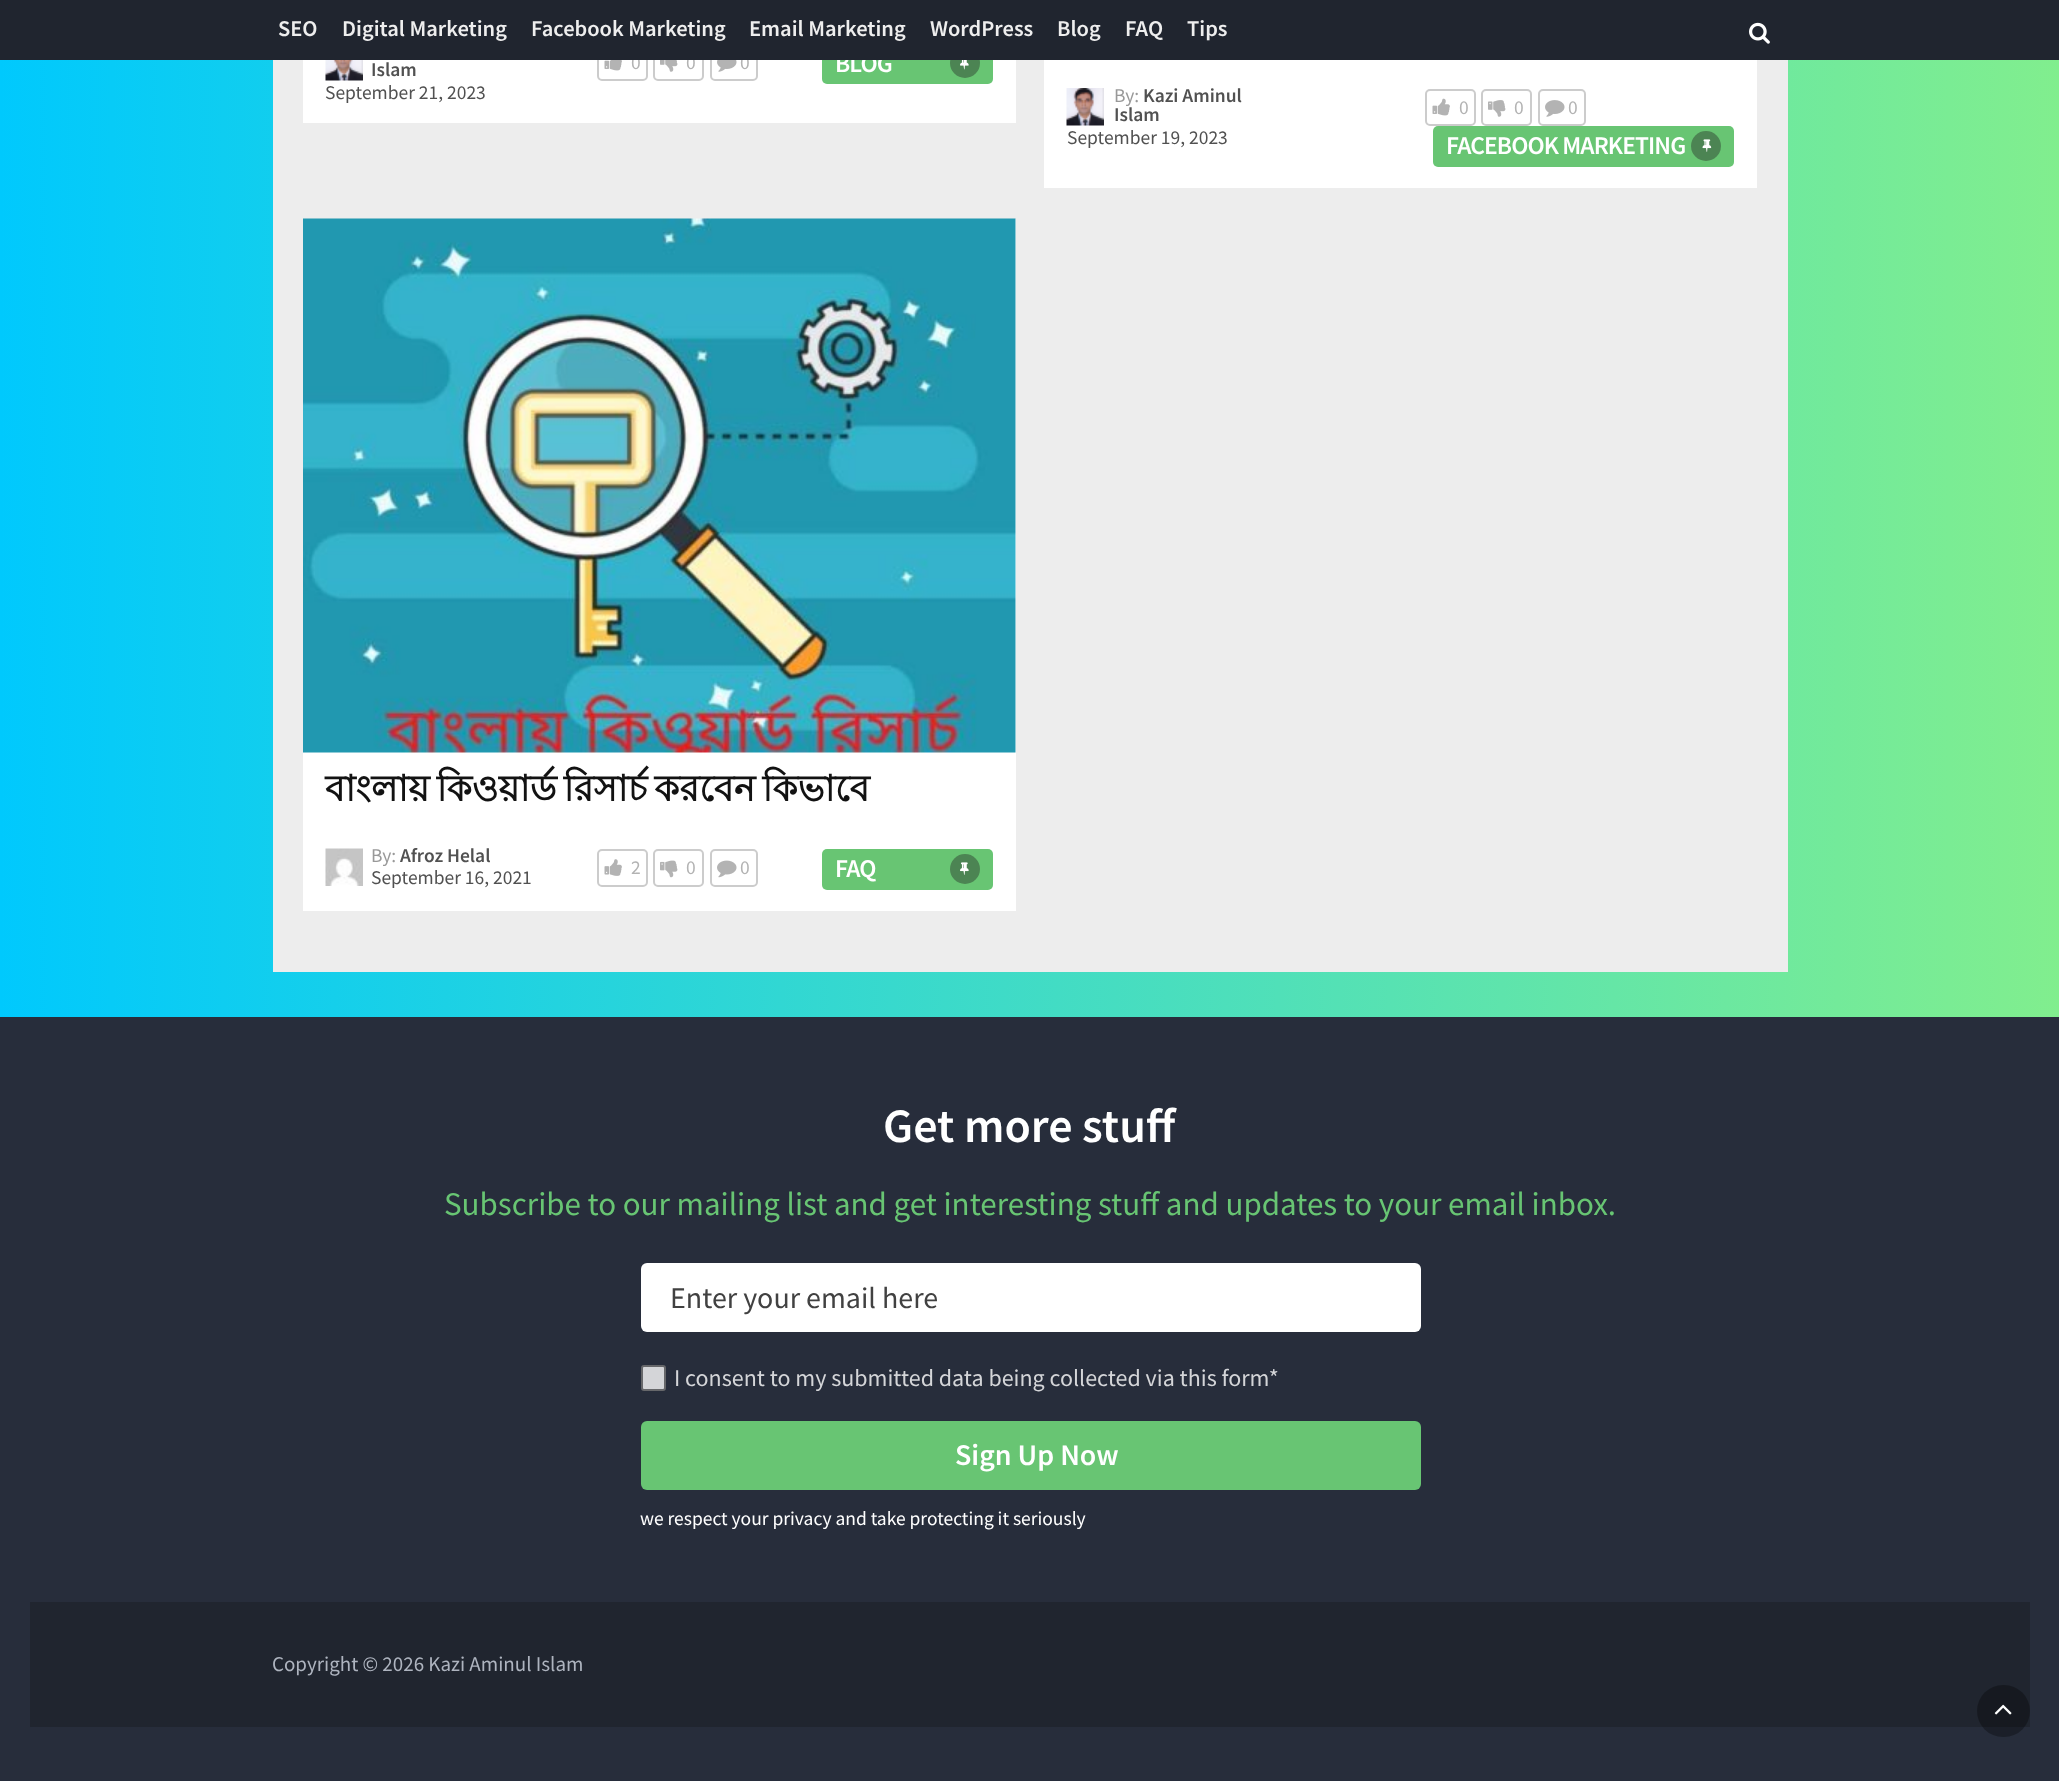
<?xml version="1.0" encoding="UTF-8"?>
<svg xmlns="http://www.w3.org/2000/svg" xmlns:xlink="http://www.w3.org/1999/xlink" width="2059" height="1781">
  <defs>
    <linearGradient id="g1" gradientUnits="userSpaceOnUse" x1="0" y1="-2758" x2="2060" y2="-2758"><stop offset="0" stop-color="#00c9fd" /><stop offset="1" stop-color="#81ee8e" /></linearGradient>
  </defs>
  <rect width="100%" height="100%" fill="#ffffff" />
  <rect y="60" width="2059" height="957" fill="url(#g1)" />
  <rect x="273" y="60" width="1515" height="912" fill="#ededed" />
  <rect x="303" y="60" width="713" height="63" fill="#ffffff" />
  <image x="325" y="60" width="38" height="21" xlink:href="image2.png" />
  <rect x="598" y="45" width="49" height="35" rx="4" fill="none" stroke="#cccccc" stroke-width="2" />
  <image x="604" y="60" width="18" height="11" xlink:href="image3.png" />
  <rect x="654" y="45" width="49" height="35" rx="4" fill="none" stroke="#cccccc" stroke-width="2" />
  <image x="660" y="60" width="18" height="12" xlink:href="image4.png" />
  <rect x="711" y="45" width="46" height="35" rx="4" fill="none" stroke="#cccccc" stroke-width="2" />
  <image x="717" y="60" width="20" height="12" xlink:href="image5.png" />
  <rect x="822" y="44" width="171" height="40" rx="5" fill="#68c573" />
  <circle cx="965" cy="63" r="15" fill="#4c8453" />
  <image x="960" y="60" width="9" height="10" xlink:href="image6.png" />
  <rect x="1044" y="60" width="713" height="128" fill="#ffffff" />
  <image x="1066" y="88" width="38" height="38" xlink:href="image7.png" />
  <rect x="1426" y="90" width="49" height="35" rx="4" fill="none" stroke="#cccccc" stroke-width="2" />
  <image x="1432" y="98" width="18" height="18" xlink:href="image8.png" />
  <rect x="1482" y="90" width="49" height="35" rx="4" fill="none" stroke="#cccccc" stroke-width="2" />
  <image x="1488" y="100" width="18" height="17" xlink:href="image9.png" />
  <rect x="1539" y="90" width="46" height="35" rx="4" fill="none" stroke="#cccccc" stroke-width="2" />
  <image x="1545" y="100" width="20" height="17" xlink:href="image10.png" />
  <rect x="1433" y="126" width="301" height="41" rx="5" fill="#68c573" />
  <circle cx="1706" cy="146" r="15" fill="#4c8453" />
  <image x="1702" y="139" width="10" height="13" xlink:href="image11.png" />
  <rect x="303" y="219" width="713" height="692" fill="#ffffff" />
  <image x="303" y="218" width="713" height="535" xlink:href="image12.png" />
  <image x="325" y="848" width="38" height="38" xlink:href="image13.png" />
  <rect x="598" y="850" width="49" height="36" rx="4" fill="none" stroke="#cccccc" stroke-width="2" />
  <image x="604" y="859" width="18" height="17" xlink:href="image14.png" />
  <rect x="654" y="850" width="49" height="36" rx="4" fill="none" stroke="#cccccc" stroke-width="2" />
  <image x="660" y="860" width="18" height="18" xlink:href="image15.png" />
  <rect x="711" y="850" width="46" height="36" rx="4" fill="none" stroke="#cccccc" stroke-width="2" />
  <image x="717" y="860" width="20" height="18" xlink:href="image16.png" />
  <rect x="822" y="849" width="171" height="41" rx="5" fill="#68c573" />
  <circle cx="965" cy="869" r="15" fill="#4c8453" />
  <image x="960" y="862" width="9" height="13" xlink:href="image17.png" />
  <rect y="1017" width="2059" height="764" fill="#272d3b" />
  <rect x="641" y="1263" width="780" height="69" rx="6" fill="#ffffff" />
  <rect x="642" y="1366" width="23" height="24" rx="2" fill="#d4d5d8" stroke="#66676a" stroke-width="2" />
  <rect x="641" y="1421" width="780" height="69" rx="6" fill="#68c573" />
  <rect x="30" y="1602" width="2000" height="125" fill="#20252f" />
  <rect x="1977" y="1685" width="53" height="52" rx="26" fill="#000000" fill-opacity="0.3" />
  <image x="1994" y="1704" width="18" height="11" xlink:href="image18.png" />
  <text x="371" y="76" style="font-family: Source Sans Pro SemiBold; font-size: 19.5px; font-weight: 600; fill: #515151">Islam</text>
  <text x="325" y="99" style="font-family: Source Sans Pro; font-size: 19.5px; fill: #515151">September 21, 2023</text>
  <text x="631" y="69" style="font-family: Source Sans Pro; font-size: 19.5px; fill: #b3b3b3">0</text>
  <text x="686" y="69" style="font-family: Source Sans Pro; font-size: 19.5px; fill: #b3b3b3">0</text>
  <text x="740" y="69" style="font-family: Source Sans Pro; font-size: 19.5px; fill: #b3b3b3">0</text>
  <text x="835" y="72" style="font-family: Source Sans Pro SemiBold; font-size: 25.5px; font-weight: 600; letter-spacing: -0.9px; fill: #ffffff">BLOG</text>
  <rect width="2059" height="60" fill="#20252f" />
  <image x="1749" y="22" width="21" height="22" xlink:href="image1.png" />
  <text x="1187" y="36" style="font-family: Source Sans Pro SemiBold; font-size: 22.5px; font-weight: 600; fill: #eeeeee">Tips</text>
  <text x="1125" y="36" style="font-family: Source Sans Pro SemiBold; font-size: 22.5px; font-weight: 600; fill: #eeeeee">FAQ</text>
  <text x="1057" y="36" style="font-family: Source Sans Pro SemiBold; font-size: 22.5px; font-weight: 600; fill: #eeeeee">Blog</text>
  <text x="930" y="36" style="font-family: Source Sans Pro SemiBold; font-size: 22.5px; font-weight: 600; fill: #eeeeee">WordPress</text>
  <text x="749" y="36" style="font-family: Source Sans Pro SemiBold; font-size: 22.5px; font-weight: 600; fill: #eeeeee">Email Marketing</text>
  <text x="531" y="36" style="font-family: Source Sans Pro SemiBold; font-size: 22.5px; font-weight: 600; fill: #eeeeee">Facebook Marketing</text>
  <text x="342" y="36" style="font-family: Source Sans Pro SemiBold; font-size: 22.5px; font-weight: 600; fill: #eeeeee">Digital Marketing</text>
  <text x="278" y="36" style="font-family: Source Sans Pro SemiBold; font-size: 22.5px; font-weight: 600; fill: #eeeeee">SEO</text>
  <text x="1114" y="102" style="font-family: Source Sans Pro; font-size: 19.5px; fill: #999999">By:</text>
  <text x="1143" y="102" style="font-family: Source Sans Pro SemiBold; font-size: 19.5px; font-weight: 600; fill: #515151">Kazi Aminul</text>
  <text x="1114" y="121" style="font-family: Source Sans Pro SemiBold; font-size: 19.5px; font-weight: 600; fill: #515151">Islam</text>
  <text x="1067" y="144" style="font-family: Source Sans Pro; font-size: 19.5px; fill: #515151">September 19, 2023</text>
  <text x="1459" y="114" style="font-family: Source Sans Pro; font-size: 19.5px; fill: #b3b3b3">0</text>
  <text x="1514" y="114" style="font-family: Source Sans Pro; font-size: 19.5px; fill: #b3b3b3">0</text>
  <text x="1568" y="114" style="font-family: Source Sans Pro; font-size: 19.5px; fill: #b3b3b3">0</text>
  <text x="1446" y="154" style="font-family: Source Sans Pro SemiBold; font-size: 25.5px; font-weight: 600; letter-spacing: -0.9px; fill: #ffffff">FACEBOOK MARKETING</text>
  <text x="325" y="801" word-spacing="-3" style="font-family: Lohit Bengali; font-size: 36px; font-weight: bold; fill: #121212">বাংলায় কিওয়ার্ড রিসার্চ করবেন কিভাবে</text>
  <text x="371" y="862" style="font-family: Source Sans Pro; font-size: 19.5px; fill: #999999">By:</text>
  <text x="400" y="862" style="font-family: Source Sans Pro SemiBold; font-size: 19.5px; font-weight: 600; fill: #515151">Afroz Helal</text>
  <text x="371" y="884" style="font-family: Source Sans Pro; font-size: 19.5px; fill: #515151">September 16, 2021</text>
  <text x="631" y="874" style="font-family: Source Sans Pro; font-size: 19.5px; fill: #b3b3b3">2</text>
  <text x="686" y="874" style="font-family: Source Sans Pro; font-size: 19.5px; fill: #b3b3b3">0</text>
  <text x="740" y="874" style="font-family: Source Sans Pro; font-size: 19.5px; fill: #b3b3b3">0</text>
  <text x="835" y="877" style="font-family: Source Sans Pro SemiBold; font-size: 25.5px; font-weight: 600; letter-spacing: -0.9px; fill: #ffffff">FAQ</text>
  <text x="883" y="1142" style="font-family: Source Sans Pro SemiBold; font-size: 48px; font-weight: 600; fill: #ffffff">Get more stuff</text>
  <text x="444" y="1215" style="font-family: Source Sans Pro; font-size: 33px; fill: #68c573">Subscribe to our mailing list and get interesting stuff and updates to your email inbox.</text>
  <text x="670" y="1308" style="font-family: Source Sans Pro; font-size: 30px; fill: #414141">Enter your email here</text>
  <text x="674" y="1386" style="font-family: Source Sans Pro; font-size: 24px; fill: #d4d5d8">I consent to my submitted data being collected via this form*</text>
  <text x="955" y="1465" style="font-family: Source Sans Pro SemiBold; font-size: 30px; font-weight: 600; fill: #ffffff">Sign Up Now</text>
  <text x="640" y="1525" style="font-family: Source Sans Pro; font-size: 19.5px; fill: #ffffff">we respect your privacy and take protecting it seriously</text>
  <text x="272" y="1671" style="font-family: Source Sans Pro; font-size: 21px; fill: #aeb4bf">Copyright © 2026 Kazi Aminul Islam</text>
</svg>
